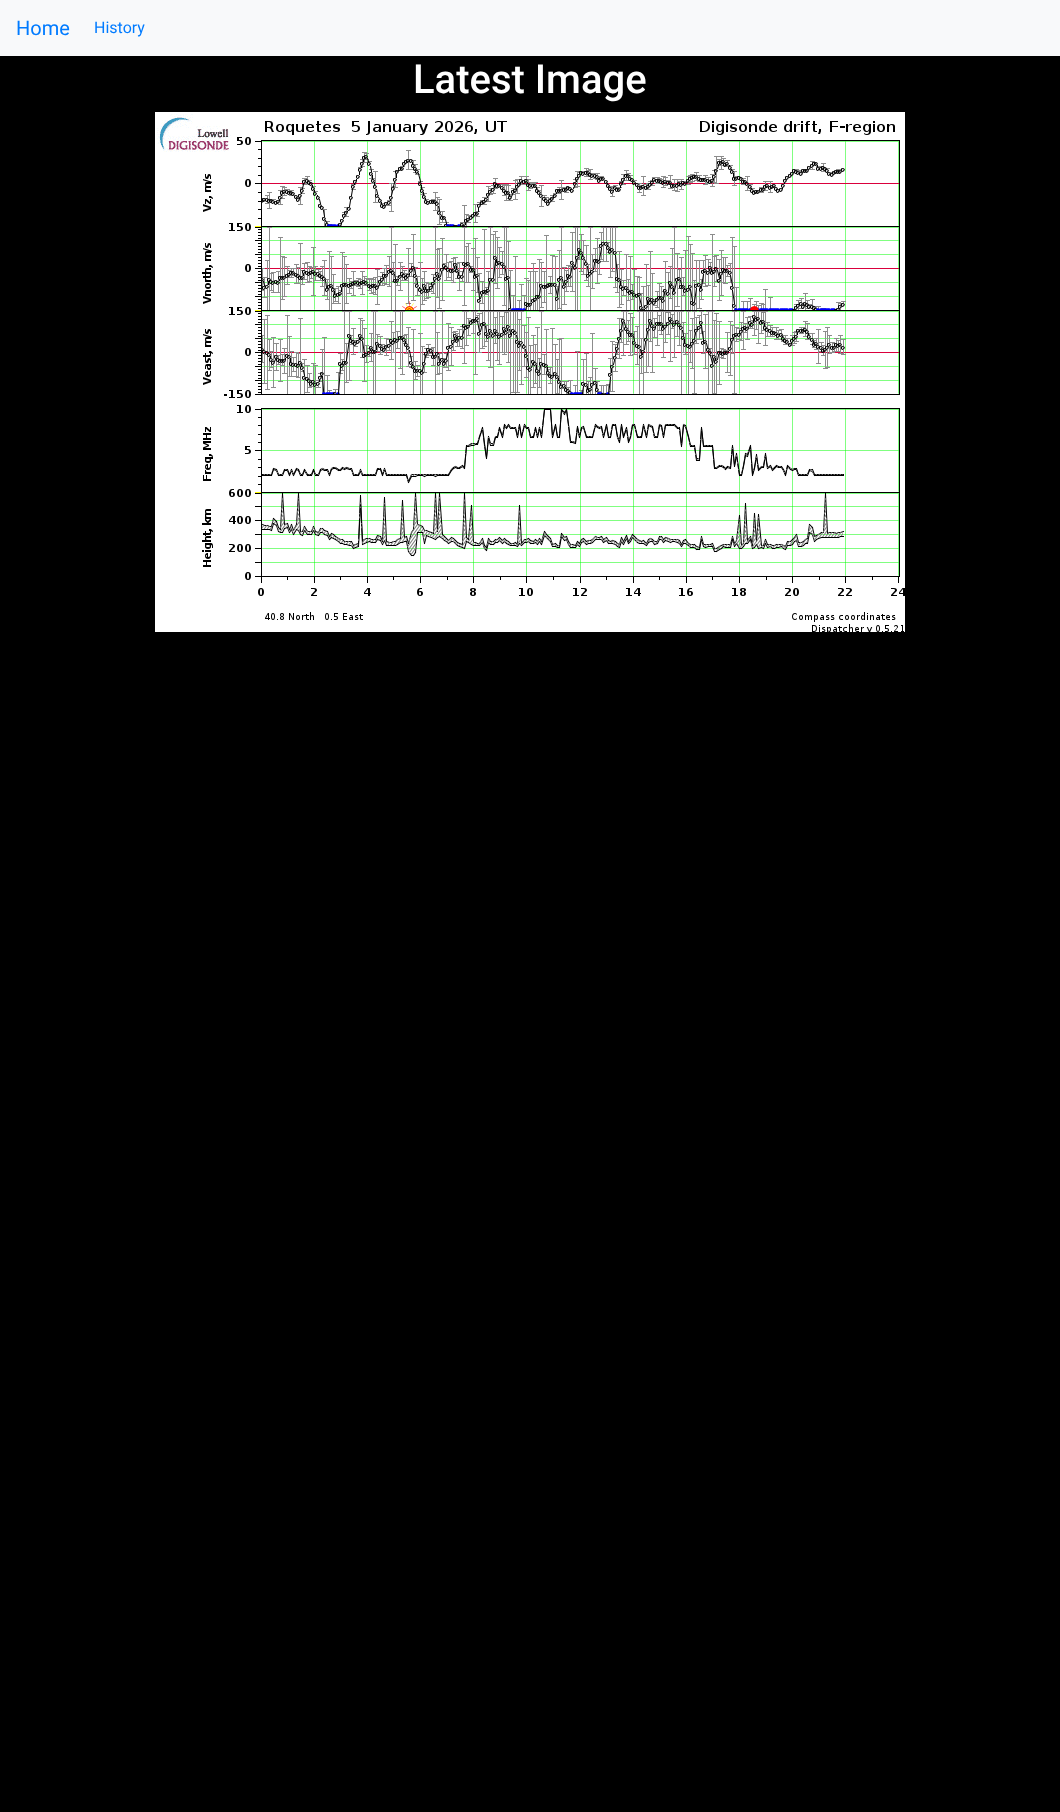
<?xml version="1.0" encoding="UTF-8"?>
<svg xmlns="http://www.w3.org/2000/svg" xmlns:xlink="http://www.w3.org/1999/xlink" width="1060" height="1812">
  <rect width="100%" height="100%" fill="#000000" />
  <rect width="1060" height="56" fill="#f8f9fa" />
  <image x="155" y="112" width="750" height="520" xlink:href="image1.png" />
  <text x="16" y="35" style="font-family: Roboto; font-size: 20px; fill: #007bff">Home</text>
  <text x="94" y="33" style="font-family: Roboto; font-size: 16px; fill: #007bff">History</text>
  <text x="413" y="93" style="font-family: Roboto; font-size: 40px; font-weight: 500; fill: #ffffff">Latest Image</text>
</svg>
